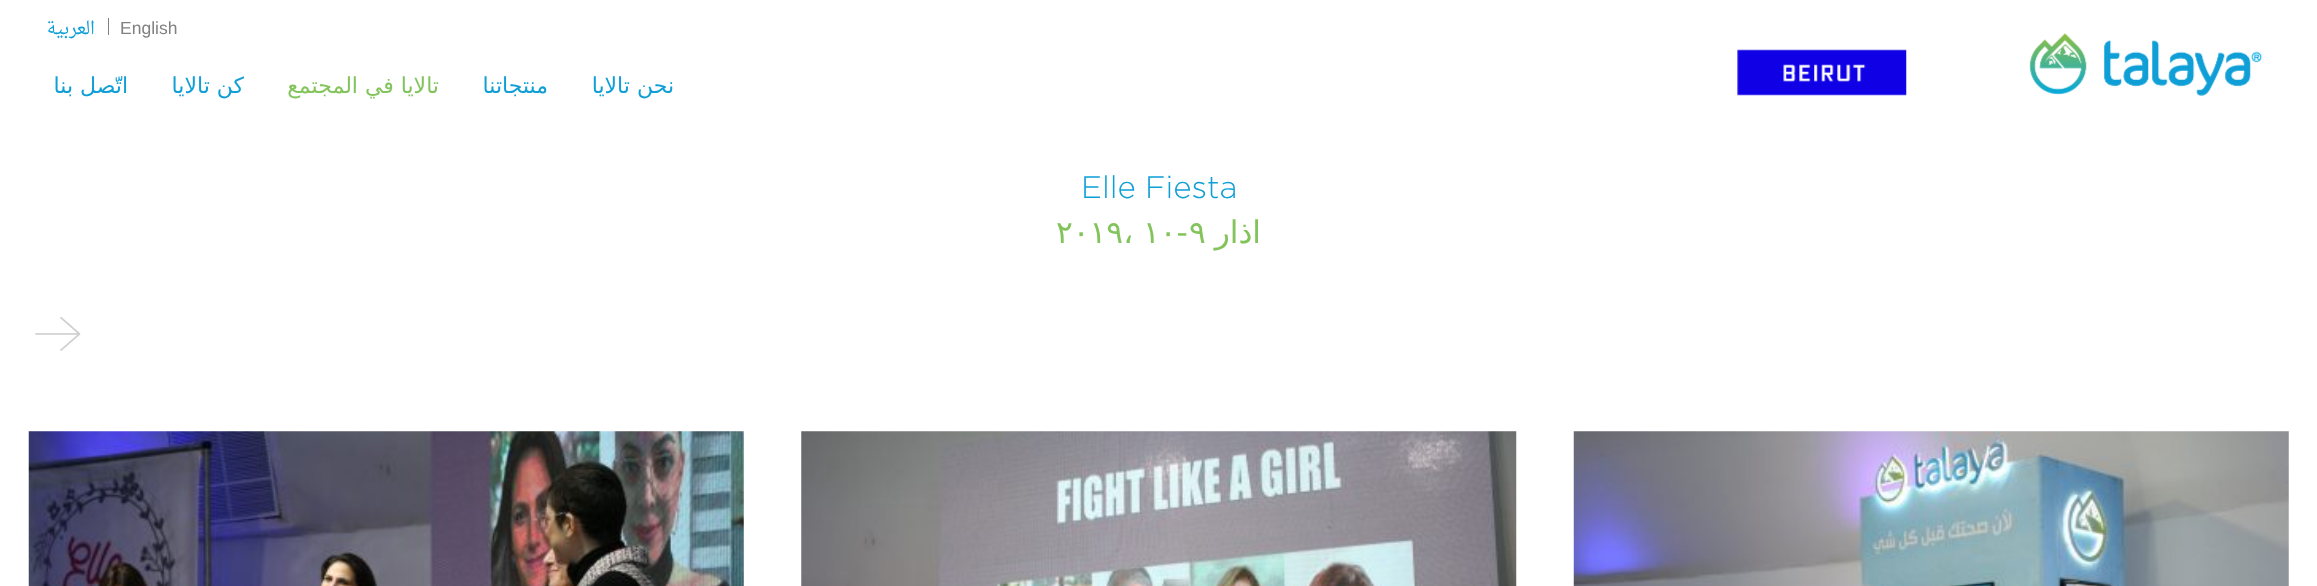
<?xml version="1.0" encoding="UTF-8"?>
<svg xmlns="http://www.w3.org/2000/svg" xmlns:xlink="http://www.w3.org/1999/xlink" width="2317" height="586">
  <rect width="100%" height="100%" fill="#ffffff" />
  <image x="2029" y="33" width="233" height="63" xlink:href="image1.png" />
  <image x="1737" y="49" width="170" height="47" xlink:href="image2.png" />
  <rect x="108" y="18" width="1" height="17" fill="#808080" />
  <image x="35" y="317" width="46" height="34" xlink:href="image3.png" />
  <image x="1573" y="431" width="716" height="155" xlink:href="image4.png" />
  <image x="801" y="431" width="716" height="155" xlink:href="image5.png" />
  <image x="28" y="431" width="716" height="155" xlink:href="image6.png" />
  <text x="120" y="34" style="font-family: Liberation Sans; font-size: 17.5px; fill: #808080">English</text>
  <text x="95" y="34" style="font-family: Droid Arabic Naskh; font-size: 17.5px; direction: rtl; fill: #0f9fd6">العربية</text>
  <text x="674" y="93" style="font-family: DejaVu Sans; font-size: 22px; direction: rtl; fill: #0f9fd6">نحن تالايا</text>
  <text x="548" y="93" style="font-family: DejaVu Sans; font-size: 22px; direction: rtl; fill: #0f9fd6">منتجاتنا</text>
  <text x="439" y="93" style="font-family: DejaVu Sans; font-size: 22px; direction: rtl; fill: #82c45b">تالايا في المجتمع</text>
  <text x="244" y="93" style="font-family: DejaVu Sans; font-size: 22px; direction: rtl; fill: #0f9fd6">كن تالايا</text>
  <text x="128" y="93" style="font-family: DejaVu Sans; font-size: 22px; direction: rtl; fill: #0f9fd6">اتّصل بنا</text>
  <text x="1081" y="198" style="font-family: Gotham; font-size: 31.25px; font-weight: 300; fill: #0f9fd6">Elle Fiesta</text>
  <text x="1261" y="243" style="font-family: DejaVu Sans; font-size: 31.25px; direction: rtl; fill: #82c45b">اذار</text>
  <text x="1189" y="243" style="font-family: DejaVu Sans; font-size: 31.25px; fill: #82c45b">٩</text>
  <text x="1143" y="243" style="font-family: DejaVu Sans; font-size: 31.25px; fill: #82c45b">١٠-</text>
  <text x="1056" y="243" style="font-family: DejaVu Sans; font-size: 31.25px; fill: #82c45b">٢٠١٩،</text>
</svg>
